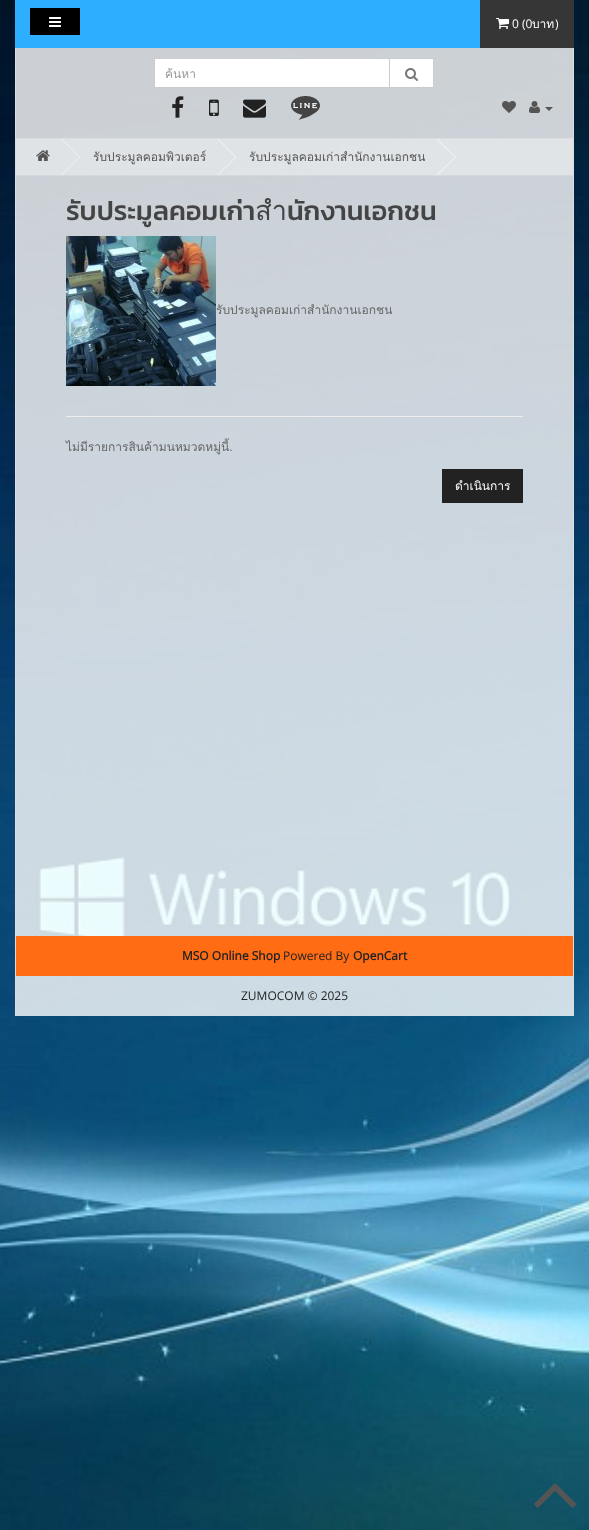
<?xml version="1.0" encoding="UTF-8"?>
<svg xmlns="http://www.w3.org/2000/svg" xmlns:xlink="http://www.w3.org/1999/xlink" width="589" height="1530">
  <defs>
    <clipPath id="clip1"><rect x="165" y="64" width="214" height="19" /></clipPath>
  </defs>
  <rect width="100%" height="100%" fill="#ffffff" />
  <image x="0" y="0" width="589" height="1530" xlink:href="image1.png" />
  <rect x="15" width="465" height="48" fill="#2eaeff" />
  <rect x="30" y="8" width="50" height="27" fill="#000000" />
  <image x="49" y="17" width="12" height="10" xlink:href="image2.png" />
  <rect x="480" width="94" height="48" fill="#363636" />
  <image x="496" y="18" width="13" height="11" xlink:href="image3.png" />
  <rect x="16" y="48" width="557" height="90" fill="#ffffff" fill-opacity="0.8" />
  <rect x="573" y="48" width="1" height="748" fill="#dddddd" />
  <rect x="15" y="138" width="559" height="1" fill="#dddddd" />
  <rect x="15" y="48" width="1" height="748" fill="#dddddd" />
  <rect x="154.5" y="58.5" width="235" height="29" fill="#ffffff" stroke="#cccccc" />
  <rect x="389.5" y="58.5" width="44" height="29" fill="#ffffff" stroke="#cccccc" />
  <image x="405" y="68" width="13" height="13" xlink:href="image4.png" />
  <image x="172" y="96" width="12" height="22" xlink:href="image5.png" />
  <image x="209" y="99" width="10" height="17" xlink:href="image6.png" />
  <image x="243" y="99" width="23" height="19" xlink:href="image7.png" />
  <image x="291" y="96" width="30" height="24" xlink:href="image8.png" />
  <image x="502" y="101" width="14" height="12" xlink:href="image9.png" />
  <image x="529" y="101" width="11" height="12" xlink:href="image10.png" />
  <path d="M 545 107 h 8 l -4 4 z" fill="#555555" />
  <rect x="16" y="139" width="557" height="657" fill="#ffffff" fill-opacity="0.8" />
  <rect x="16" y="139" width="557" height="36" fill="#ffffff" fill-opacity="0.4" />
  <rect x="16" y="175" width="557" height="1" fill="#d5d9dc" />
  <image x="36" y="150" width="14" height="11" xlink:href="image11.png" />
  <path d="M 61 139.5 l 0.5 -1 l 18.5 18.5 l -0.5 0.5 z" fill="#eeeeee" />
  <path d="M 61 174.5 l 18.5 -18 l 0.5 0.5 l -18.5 18.5 z" fill="#eeeeee" />
  <path d="M 217.5 139.5 l 0.5 -1 l 18.5 18.5 l -1 0.5 z" fill="#eeeeee" />
  <path d="M 217.5 174.5 l 18 -18 l 1 0.5 l -18.5 18.5 z" fill="#eeeeee" />
  <path d="M 436.5 139.5 l 1 -1 l 18.5 18.5 l -1 0.5 z" fill="#eeeeee" />
  <path d="M 436.5 174.5 l 18.5 -18 l 1 0.5 l -18.5 18.5 z" fill="#eeeeee" />
  <image x="66" y="236" width="150" height="150" xlink:href="image12.png" />
  <rect x="66" y="416" width="457" height="1" fill="#eeeeee" />
  <rect x="442" y="469" width="81" height="34" fill="#222222" />
  <rect x="16" y="796" width="557" height="220" fill="#ffffff" fill-opacity="0.8" />
  <rect x="573" y="796" width="1" height="220" fill="#dddddd" />
  <rect x="15" y="796" width="1" height="220" fill="#dddddd" />
  <rect x="16" y="936" width="557" height="40" fill="#ff6c14" />
  <image x="534" y="1483" width="42" height="25" xlink:href="image13.png" />
  <text x="512" y="28" style="font-family: Open Sans; font-size: 12px; fill: #ffffff">0 (0</text>
  <text x="532" y="28" style="font-family: Loma; font-size: 12px; fill: #ffffff">บาท</text>
  <text x="555" y="28" style="font-family: Open Sans; font-size: 12px; fill: #ffffff">)</text>
  <g clip-path="url(#clip1)">
    <text x="165" y="78" style="font-family: Loma; font-size: 12px; fill: #999999">ค้นหา</text>
  </g>
  <text x="93" y="161" style="font-family: Loma; font-size: 12px; fill: #555555">รับประมูลคอมพิวเตอร์</text>
  <text x="249" y="161" style="font-family: Loma; font-size: 12px; fill: #555555">รับประมูลคอมเก่าสำนักงานเอกชน</text>
  <text x="66" y="220" style="font-family: Kanit; font-size: 27px; font-weight: 500; fill: #444444">รับประมูลคอมเก่าสำนักงานเอกชน</text>
  <text x="216" y="314" style="font-family: Loma; font-size: 12px; fill: #666666">รับประมูลคอมเก่าสำนักงานเอกชน</text>
  <text x="66" y="451" style="font-family: Loma; font-size: 12px; fill: #666666">ไม่มีรายการสินค้ามนหมวดหมู่นี้.</text>
  <text x="455" y="490" style="font-family: Loma; font-size: 12px; fill: #ffffff">ดำเนินการ</text>
  <text x="182" y="960" style="font-family: Open Sans; font-size: 12px; font-weight: bold; fill: #222222">MSO Online Shop</text>
  <text x="283" y="960" style="font-family: Open Sans; font-size: 12px; fill: #222222">Powered By</text>
  <text x="353" y="960" style="font-family: Open Sans; font-size: 12px; font-weight: bold; fill: #222222">OpenCart</text>
  <text x="241" y="1000" style="font-family: Open Sans; font-size: 12px; fill: #222222">ZUMOCOM © 2025</text>
</svg>
